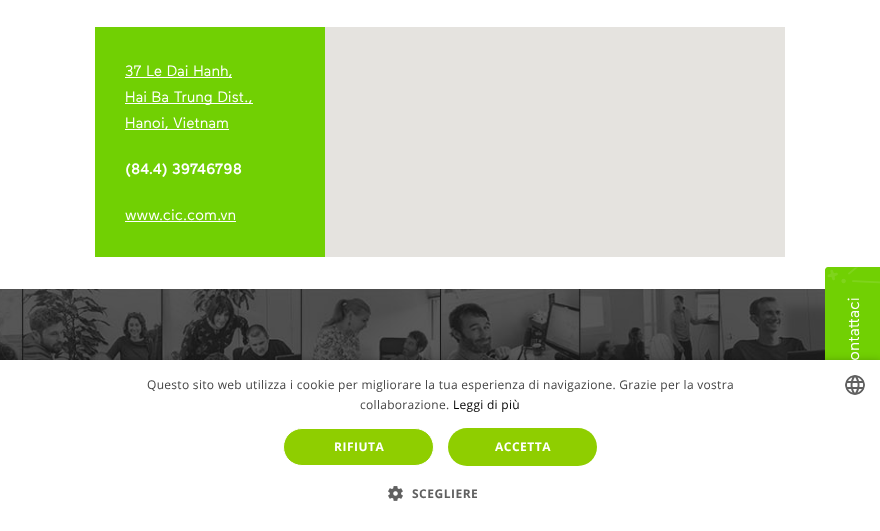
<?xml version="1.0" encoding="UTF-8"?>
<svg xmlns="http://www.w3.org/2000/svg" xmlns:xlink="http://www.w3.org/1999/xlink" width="880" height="531">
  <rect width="100%" height="100%" fill="#ffffff" />
  <rect x="95" y="27" width="230" height="230" fill="#71d003" />
  <rect x="125" y="77" width="107" height="1" fill="#ffffff" />
  <rect x="125" y="103" width="128" height="1" fill="#ffffff" />
  <rect x="125" y="129" width="104" height="1" fill="#ffffff" />
  <rect x="125" y="221" width="111" height="1" fill="#ffffff" />
  <rect x="325" y="27" width="460" height="230" fill="#e5e3df" />
  <image x="0" y="289" width="825" height="71" xlink:href="image1.png" />
  <rect x="785" y="307" width="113" height="55" rx="3" fill="#000000" fill-opacity="0.2" filter="blur(5px)" />
  <path d="M 825 399 v -129 c 0 -1 1 -3 3 -3 h 52 v 135 h -52 c -2 0 -3 -1 -3 -3 z" fill="#71d003" />
  <image x="827" y="267" width="53" height="17" xlink:href="image2.png" />
  <rect x="1" y="362" width="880" height="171" fill="#000000" fill-opacity="0.35" filter="blur(4px)" />
  <rect y="360" width="880" height="171" fill="#ffffff" />
  <image x="845" y="375" width="20" height="20" xlink:href="image3.png" />
  <rect x="283.5" y="428.5" width="150" height="37" rx="18.5" fill="#8fce00" stroke="#ffffff" />
  <rect x="448" y="428" width="149" height="38" rx="19" fill="#8fce00" />
  <image x="388" y="486" width="15" height="15" xlink:href="image4.png" />
  <text x="125" y="76" style="font-family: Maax; font-size: 15px; fill: #ffffff">37 Le Dai Hanh,</text>
  <text x="125" y="102" style="font-family: Maax; font-size: 15px; fill: #ffffff">Hai Ba Trung Dist.,</text>
  <text x="125" y="128" style="font-family: Maax; font-size: 15px; fill: #ffffff">Hanoi, Vietnam</text>
  <text x="125" y="174" style="font-family: Maax; font-size: 15px; font-weight: 500; fill: #ffffff">(84.4) 39746798</text>
  <text x="125" y="220" style="font-family: Maax; font-size: 15px; fill: #ffffff">www.cic.com.vn</text>
  <text x="859" y="372" transform="rotate(-90 859 372)" style="font-family: Maax; font-size: 16px; fill: #ffffff">Contattaci</text>
  <text x="147" y="389" style="font-family: Open Sans; font-size: 12px; letter-spacing: 0.3px; fill: #444444">Questo sito web utilizza i cookie per migliorare la tua esperienza di navigazione. Grazie per la vostra</text>
  <text x="360" y="409" style="font-family: Open Sans; font-size: 12px; letter-spacing: 0.3px; fill: #444444">collaborazione.</text>
  <text x="453" y="409" style="font-family: Open Sans; font-size: 12px; letter-spacing: 0.3px; fill: #000000">Leggi di più</text>
  <text x="334" y="451" style="font-family: Open Sans; font-size: 12px; font-weight: bold; letter-spacing: 0.5px; fill: #ffffff">RIFIUTA</text>
  <text x="495" y="451" style="font-family: Open Sans; font-size: 12px; font-weight: bold; letter-spacing: 0.5px; fill: #ffffff">ACCETTA</text>
  <text x="412" y="498" style="font-family: Open Sans; font-size: 12px; font-weight: bold; letter-spacing: 0.5px; fill: #606060">SCEGLIERE</text>
</svg>
